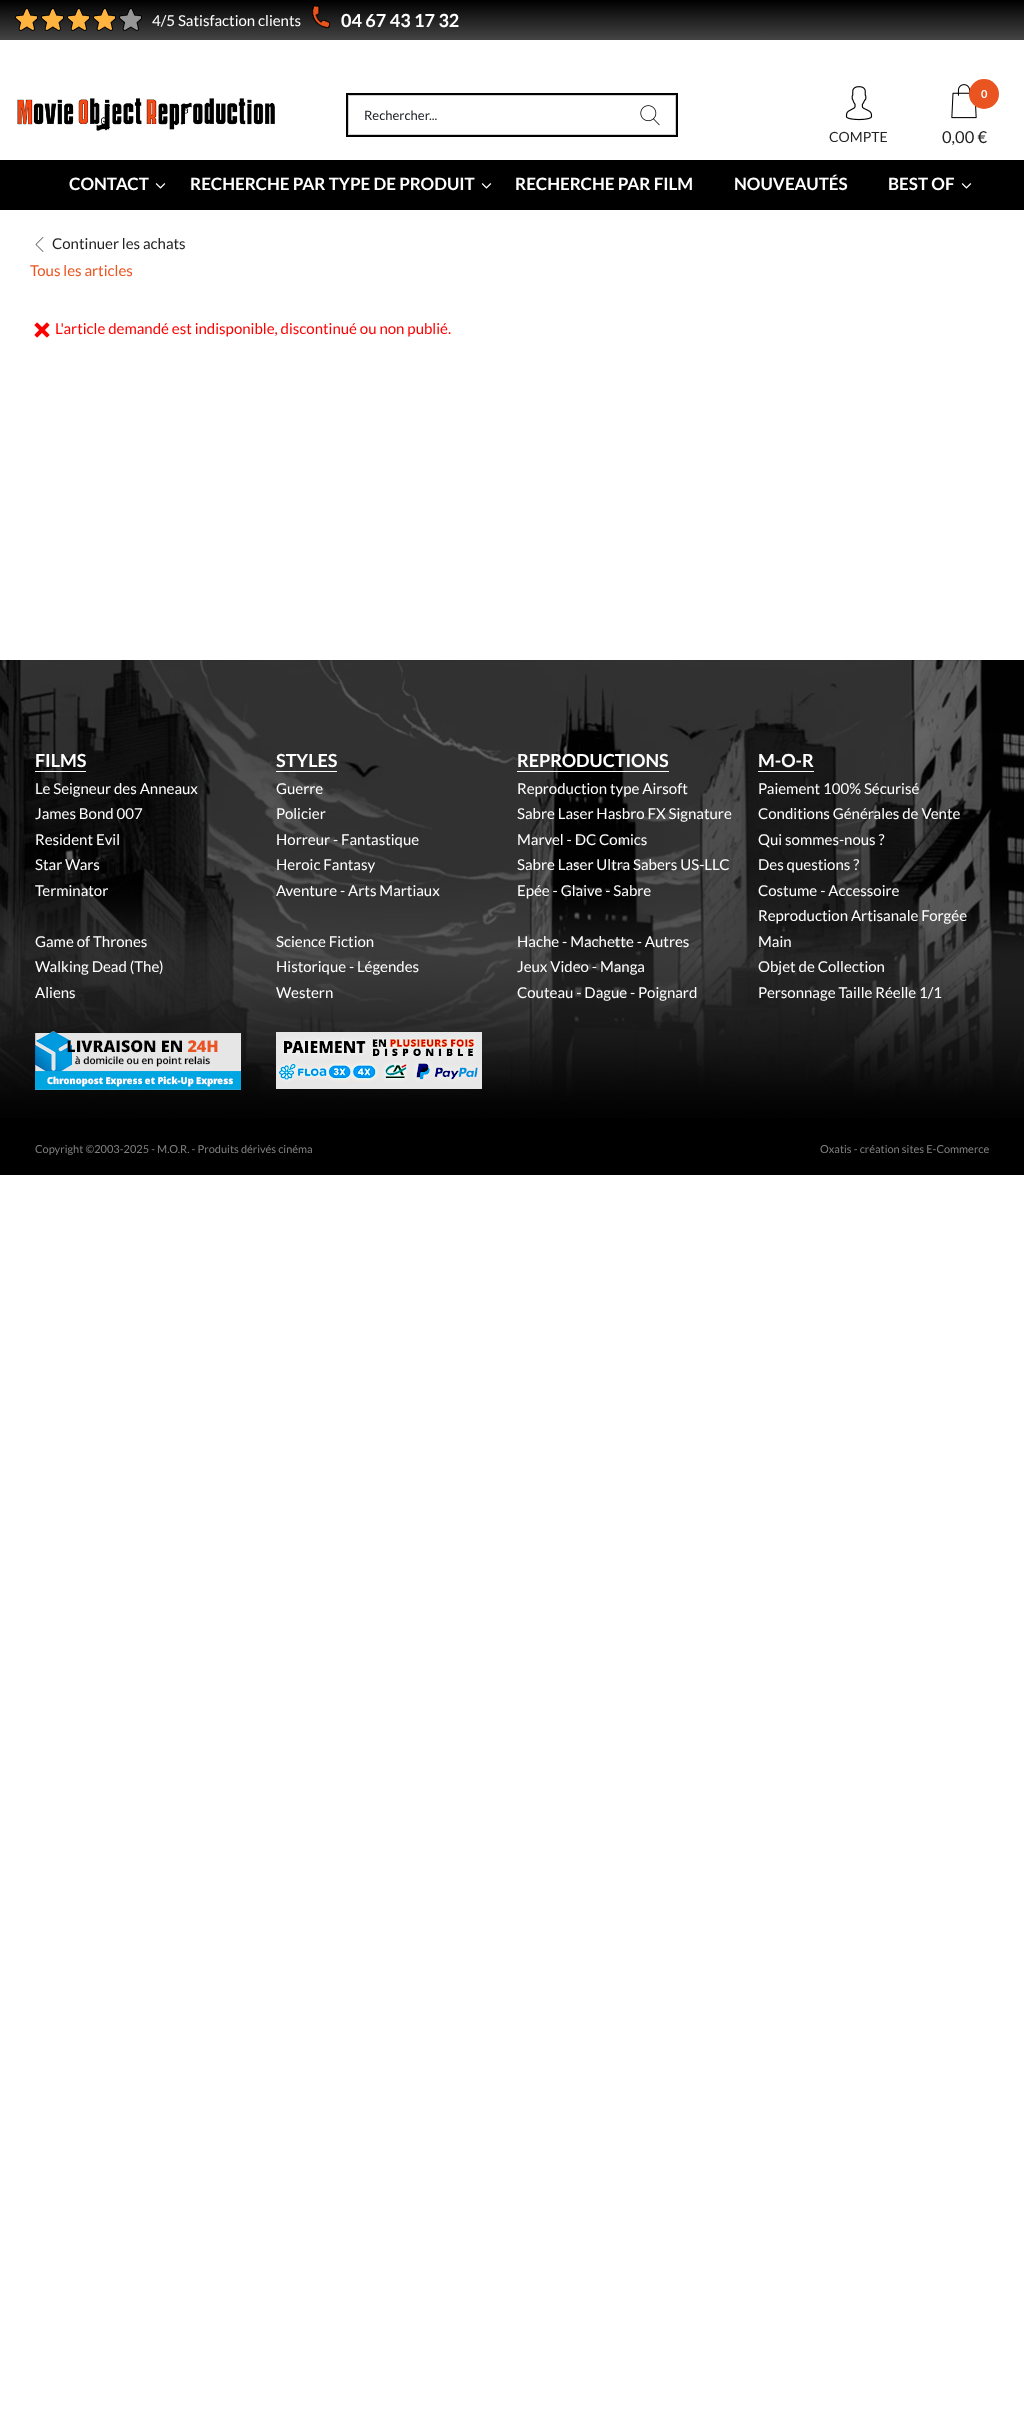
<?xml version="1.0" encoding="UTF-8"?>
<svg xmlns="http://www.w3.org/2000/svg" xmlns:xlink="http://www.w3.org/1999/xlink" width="1024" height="2416">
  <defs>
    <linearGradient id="g1" gradientUnits="userSpaceOnUse" x1="512" y1="0" x2="512" y2="40"><stop offset="0" stop-color="#000000" /><stop offset="1" stop-color="#444444" /></linearGradient>
  </defs>
  <rect width="100%" height="100%" fill="#ffffff" />
  <rect width="1024" height="40" fill="url(#g1)" />
  <image x="15" y="8" width="127" height="23" xlink:href="image1.png" />
  <image x="312" y="5" width="19" height="24" xlink:href="image2.png" />
  <image x="17" y="98" width="258" height="33" xlink:href="image3.png" />
  <rect x="347" y="94" width="330" height="42" fill="none" stroke="#000000" stroke-width="2" />
  <rect x="348" y="95" width="328" height="1" fill="#d0d0d0" />
  <rect x="348" y="134" width="277" height="1" fill="#d0d0d0" />
  <rect x="348" y="95" width="1" height="40" fill="#d0d0d0" />
  <rect x="675" y="95" width="1" height="40" fill="#d0d0d0" />
  <rect x="625" y="134" width="51" height="1" fill="#d0d0d0" />
  <image x="640" y="105" width="20" height="21" xlink:href="image4.png" />
  <image x="845" y="86" width="28" height="35" xlink:href="image5.png" />
  <image x="951" y="84" width="26" height="35" xlink:href="image6.png" />
  <circle cx="984" cy="94" r="15" fill="#ea5421" />
  <rect y="160" width="1024" height="50" fill="#000000" />
  <image x="155" y="183" width="11" height="6" xlink:href="image7.png" />
  <image x="481" y="183" width="11" height="6" xlink:href="image7.png" />
  <image x="961" y="183" width="11" height="6" xlink:href="image7.png" />
  <image x="35" y="237" width="9" height="15" xlink:href="image8.png" />
  <image x="34" y="322" width="16" height="16" xlink:href="image9.png" />
  <rect y="1118" width="1024" height="57" fill="#000000" />
  <image x="0" y="660" width="1024" height="458" xlink:href="image10.png" />
  <rect x="35" y="771" width="51" height="1" fill="#ffffff" />
  <rect x="276" y="771" width="61" height="1" fill="#ffffff" />
  <rect x="517" y="771" width="152" height="1" fill="#ffffff" />
  <rect x="758" y="771" width="56" height="1" fill="#ffffff" />
  <image x="35" y="1031" width="206" height="59" xlink:href="image11.png" />
  <image x="276" y="1032" width="206" height="57" xlink:href="image12.png" />
  <text x="152" y="26" style="font-family: Lato; font-size: 15px; fill: #ffffff">4/5 Satisfaction clients</text>
  <text x="341" y="27" style="font-family: Lato; font-size: 18px; font-weight: bold; fill: #ffffff">04 67 43 17 32</text>
  <text x="364" y="120" style="font-family: Lato; font-size: 13px; fill: #1a1f26">Rechercher...</text>
  <text x="829" y="142" style="font-family: Lato; font-size: 14px; fill: #222222">COMPTE</text>
  <text x="981" y="98" style="font-family: Lato; font-size: 11px; font-weight: bold; fill: #ffffff">0</text>
  <text x="942" y="143" style="font-family: Lato; font-size: 16.5px; fill: #222222">0,00 €</text>
  <text x="69" y="190" style="font-family: Lato; font-size: 17px; font-weight: bold; fill: #ffffff">CONTACT</text>
  <text x="190" y="190" style="font-family: Lato; font-size: 17px; font-weight: bold; fill: #ffffff">RECHERCHE PAR TYPE DE PRODUIT</text>
  <text x="515" y="190" style="font-family: Lato; font-size: 17px; font-weight: bold; fill: #ffffff">RECHERCHE PAR FILM</text>
  <text x="734" y="190" style="font-family: Lato; font-size: 17px; font-weight: bold; fill: #ffffff">NOUVEAUTÉS</text>
  <text x="888" y="190" style="font-family: Lato; font-size: 17px; font-weight: bold; fill: #ffffff">BEST OF</text>
  <text x="52" y="249" style="font-family: Lato; font-size: 15px; fill: #222222">Continuer les achats</text>
  <text x="30" y="276" style="font-family: Lato; font-size: 15px; fill: #ea5421">Tous les articles</text>
  <text x="55" y="334" style="font-family: Lato; font-size: 15px; fill: #ff0000">L'article demandé est indisponible, discontinué ou non publié.</text>
  <text x="35" y="767" style="font-family: Lato; font-size: 18px; font-weight: bold; fill: #ffffff">FILMS</text>
  <text x="276" y="767" style="font-family: Lato; font-size: 18px; font-weight: bold; fill: #ffffff">STYLES</text>
  <text x="517" y="767" style="font-family: Lato; font-size: 18px; font-weight: bold; fill: #ffffff">REPRODUCTIONS</text>
  <text x="758" y="767" style="font-family: Lato; font-size: 18px; font-weight: bold; fill: #ffffff">M-O-R</text>
  <text x="35" y="794" style="font-family: Lato; font-size: 15px; fill: #ffffff">Le Seigneur des Anneaux</text>
  <text x="276" y="794" style="font-family: Lato; font-size: 15px; fill: #ffffff">Guerre</text>
  <text x="517" y="794" style="font-family: Lato; font-size: 15px; fill: #ffffff">Reproduction type Airsoft</text>
  <text x="758" y="794" style="font-family: Lato; font-size: 15px; fill: #ffffff">Paiement 100% Sécurisé</text>
  <text x="35" y="819" style="font-family: Lato; font-size: 15px; fill: #ffffff">James Bond 007</text>
  <text x="276" y="819" style="font-family: Lato; font-size: 15px; fill: #ffffff">Policier</text>
  <text x="517" y="819" style="font-family: Lato; font-size: 15px; fill: #ffffff">Sabre Laser Hasbro FX Signature</text>
  <text x="758" y="819" style="font-family: Lato; font-size: 15px; fill: #ffffff">Conditions Générales de Vente</text>
  <text x="35" y="845" style="font-family: Lato; font-size: 15px; fill: #ffffff">Resident Evil</text>
  <text x="276" y="845" style="font-family: Lato; font-size: 15px; fill: #ffffff">Horreur - Fantastique</text>
  <text x="517" y="845" style="font-family: Lato; font-size: 15px; fill: #ffffff">Marvel - DC Comics</text>
  <text x="758" y="845" style="font-family: Lato; font-size: 15px; fill: #ffffff">Qui sommes-nous ?</text>
  <text x="35" y="870" style="font-family: Lato; font-size: 15px; fill: #ffffff">Star Wars</text>
  <text x="276" y="870" style="font-family: Lato; font-size: 15px; fill: #ffffff">Heroic Fantasy</text>
  <text x="517" y="870" style="font-family: Lato; font-size: 15px; fill: #ffffff">Sabre Laser Ultra Sabers US-LLC</text>
  <text x="758" y="870" style="font-family: Lato; font-size: 15px; fill: #ffffff">Des questions ?</text>
  <text x="35" y="896" style="font-family: Lato; font-size: 15px; fill: #ffffff">Terminator</text>
  <text x="276" y="896" style="font-family: Lato; font-size: 15px; fill: #ffffff">Aventure - Arts Martiaux</text>
  <text x="517" y="896" style="font-family: Lato; font-size: 15px; fill: #ffffff">Epée - Glaive - Sabre</text>
  <text x="758" y="896" style="font-family: Lato; font-size: 15px; fill: #ffffff">Costume - Accessoire</text>
  <text x="35" y="947" style="font-family: Lato; font-size: 15px; fill: #ffffff">Game of Thrones</text>
  <text x="276" y="947" style="font-family: Lato; font-size: 15px; fill: #ffffff">Science Fiction</text>
  <text x="517" y="947" style="font-family: Lato; font-size: 15px; fill: #ffffff">Hache - Machette - Autres</text>
  <text x="758" y="921" style="font-family: Lato; font-size: 15px; fill: #ffffff">Reproduction Artisanale Forgée</text>
  <text x="758" y="947" style="font-family: Lato; font-size: 15px; fill: #ffffff">Main</text>
  <text x="35" y="972" style="font-family: Lato; font-size: 15px; fill: #ffffff">Walking Dead (The)</text>
  <text x="276" y="972" style="font-family: Lato; font-size: 15px; fill: #ffffff">Historique - Légendes</text>
  <text x="517" y="972" style="font-family: Lato; font-size: 15px; fill: #ffffff">Jeux Video - Manga</text>
  <text x="758" y="972" style="font-family: Lato; font-size: 15px; fill: #ffffff">Objet de Collection</text>
  <text x="35" y="998" style="font-family: Lato; font-size: 15px; fill: #ffffff">Aliens</text>
  <text x="276" y="998" style="font-family: Lato; font-size: 15px; fill: #ffffff">Western</text>
  <text x="517" y="998" style="font-family: Lato; font-size: 15px; fill: #ffffff">Couteau - Dague - Poignard</text>
  <text x="758" y="998" style="font-family: Lato; font-size: 15px; fill: #ffffff">Personnage Taille Réelle 1/1</text>
  <text x="35" y="1153" style="font-family: Lato; font-size: 11px; fill: #808080">Copyright ©2003-2025 - M.O.R. - Produits dérivés cinéma</text>
  <text x="820" y="1153" style="font-family: Lato; font-size: 11px; fill: #808080">Oxatis - création sites E-Commerce</text>
</svg>
